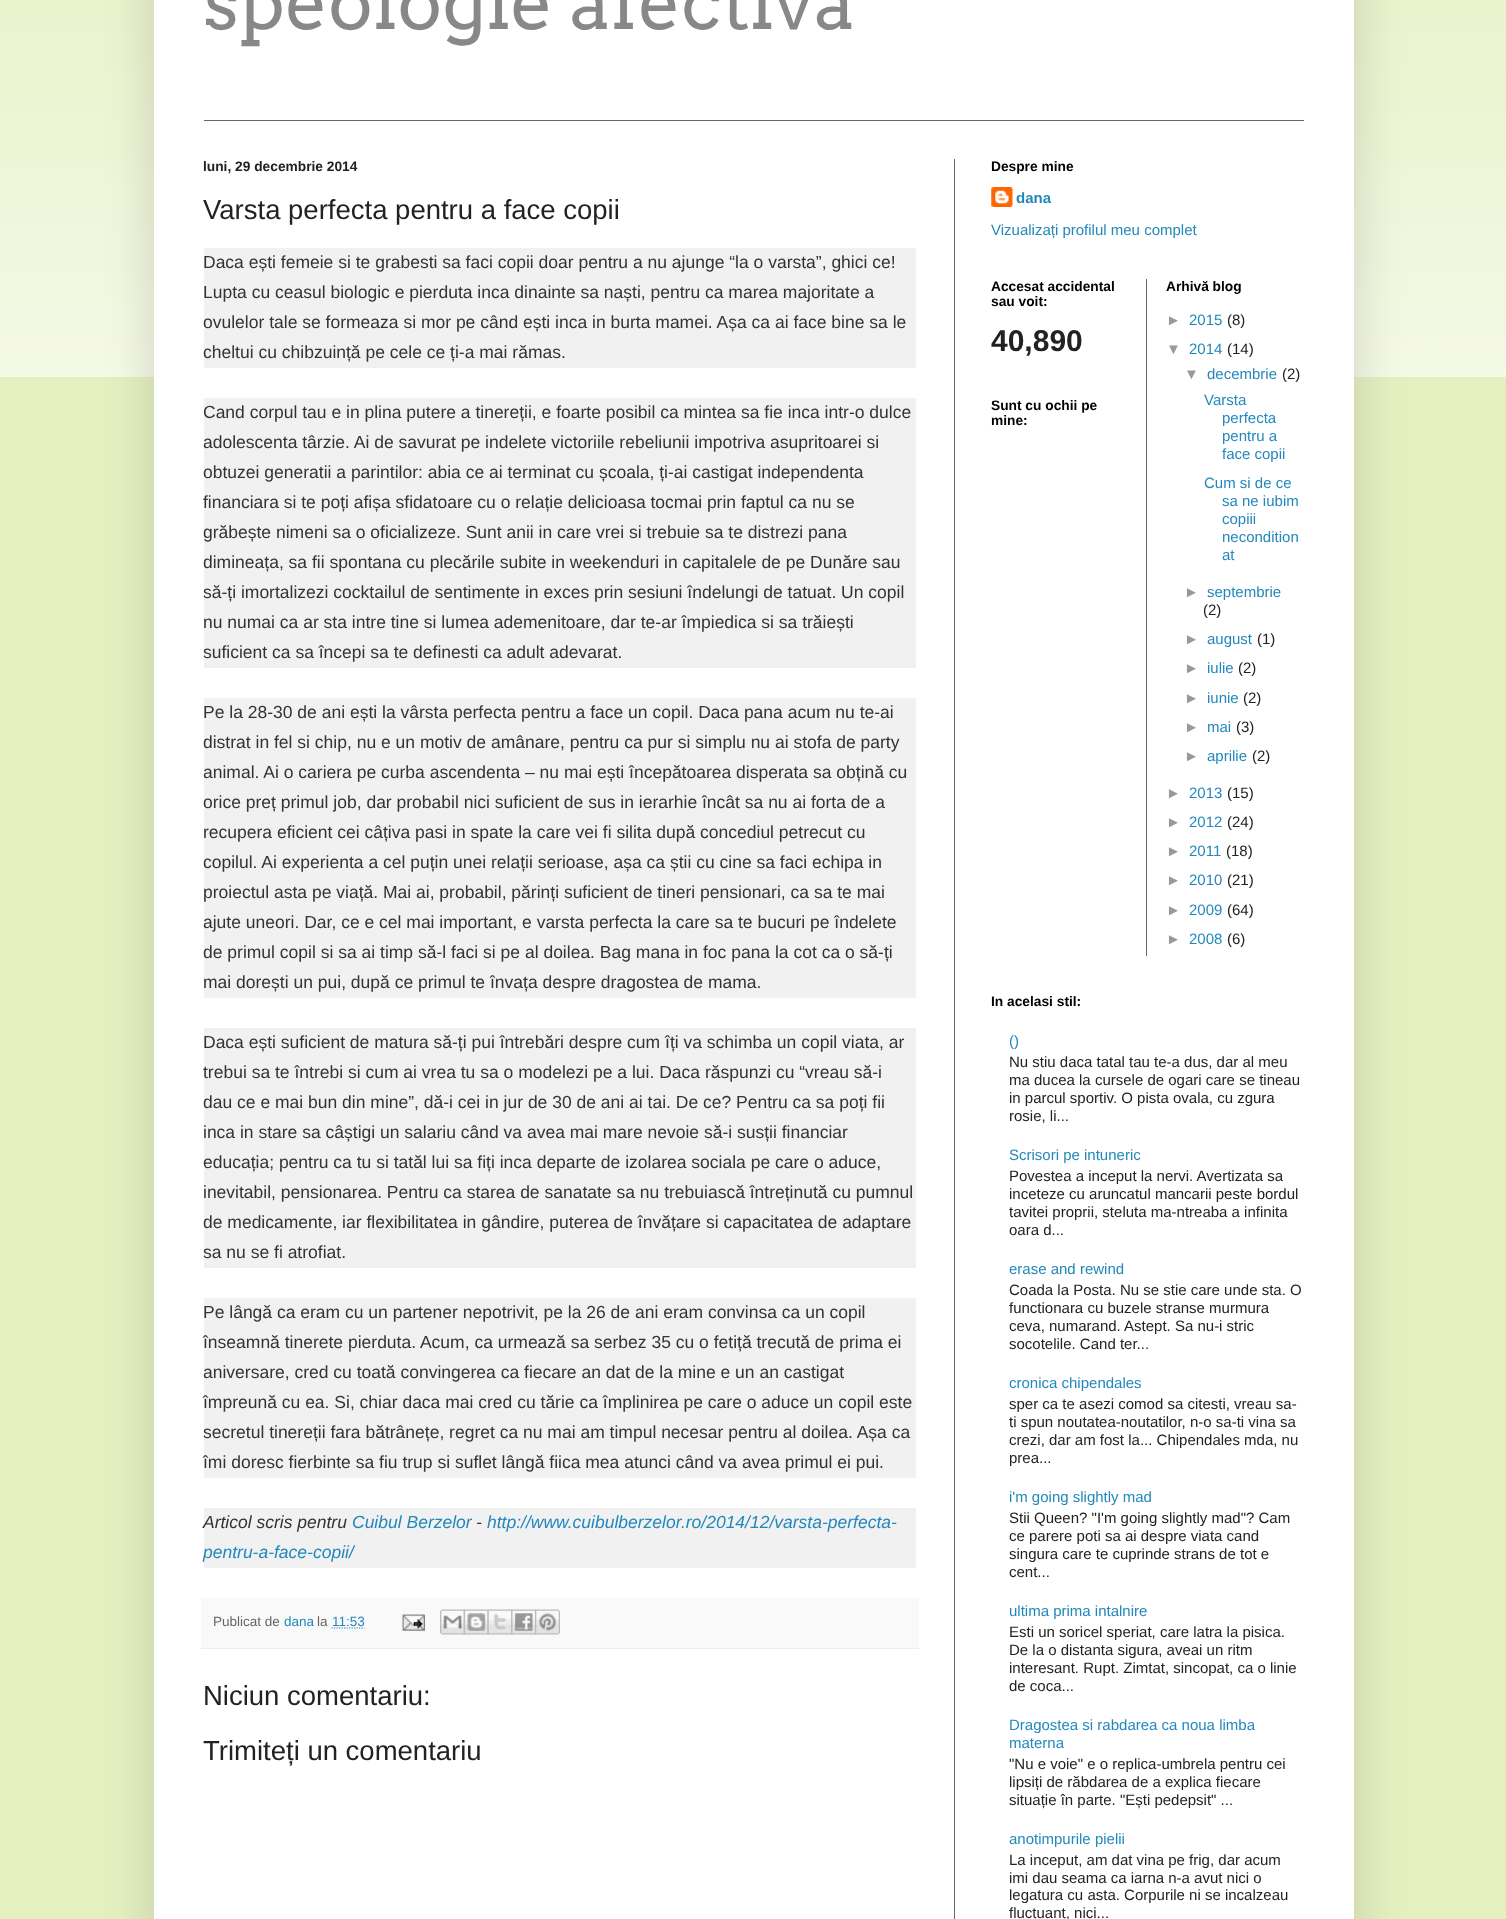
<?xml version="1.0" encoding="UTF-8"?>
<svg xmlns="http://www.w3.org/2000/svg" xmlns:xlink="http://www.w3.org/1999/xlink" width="1506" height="1919">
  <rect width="100%" height="100%" fill="#e5f0c1" />
  <image x="0" y="0" width="1506" height="377" xlink:href="image1.png" />
  <rect x="154" y="-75" width="1200" height="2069" fill="#000000" fill-opacity="0.15" filter="blur(25px)" />
  <rect x="154" width="1200" height="1919" fill="#ffffff" />
  <rect x="204" y="120" width="1100" height="1" fill="#666666" />
  <rect x="954" y="159" width="1" height="1760" fill="#666666" />
  <rect x="204" y="248" width="712" height="120" fill="#f1f1f1" />
  <rect x="204" y="398" width="712" height="270" fill="#f1f1f1" />
  <rect x="204" y="698" width="712" height="300" fill="#f1f1f1" />
  <rect x="204" y="1028" width="712" height="240" fill="#f1f1f1" />
  <rect x="204" y="1298" width="712" height="180" fill="#f1f1f1" />
  <rect x="204" y="1508" width="712" height="60" fill="#f1f1f1" />
  <rect x="201" y="1598" width="718" height="50" fill="#f9f9f9" />
  <rect x="201" y="1648" width="718" height="1" fill="#eeeeee" />
  <path d="M 331.5 1628 h 33" fill="none" stroke="#2288bb" stroke-width="1.2" stroke-dasharray="1.25 1.25" />
  <image x="402" y="1614" width="23" height="17" xlink:href="image2.png" />
  <image x="440" y="1609" width="25" height="26" xlink:href="image3.png" />
  <image x="463" y="1609" width="26" height="26" xlink:href="image4.png" />
  <image x="487" y="1609" width="26" height="26" xlink:href="image5.png" />
  <image x="511" y="1609" width="26" height="26" xlink:href="image6.png" />
  <image x="535" y="1609" width="25" height="26" xlink:href="image7.png" />
  <image x="991" y="187" width="22" height="20" xlink:href="image8.png" />
  <rect x="1146" y="279" width="1" height="677" fill="#666666" />
  <text x="203" y="29" style="font-family: Arvo; font-size: 75px; fill: #888888">speologie afectiva</text>
  <text x="203" y="171" style="font-family: Liberation Sans; font-size: 13.75px; font-weight: bold; fill: #222222">luni, 29 decembrie 2014</text>
  <text x="203" y="219" style="font-family: Liberation Sans; font-size: 27.5px; fill: #222222">Varsta perfecta pentru a face copii</text>
  <text x="203" y="268" style="font-family: Liberation Sans; font-size: 17.5px; fill: #333333">Daca ești femeie si te grabesti sa faci copii doar pentru a nu ajunge “la o varsta”, ghici ce!</text>
  <text x="203" y="298" style="font-family: Liberation Sans; font-size: 17.5px; fill: #333333">Lupta cu ceasul biologic e pierduta inca dinainte sa naști, pentru ca marea majoritate a</text>
  <text x="203" y="328" style="font-family: Liberation Sans; font-size: 17.5px; fill: #333333">ovulelor tale se formeaza si mor pe când ești inca in burta mamei. Așa ca ai face bine sa le</text>
  <text x="203" y="358" style="font-family: Liberation Sans; font-size: 17.5px; fill: #333333">cheltui cu chibzuință pe cele ce ți-a mai rămas.</text>
  <text x="203" y="418" style="font-family: Liberation Sans; font-size: 17.5px; fill: #333333">Cand corpul tau e in plina putere a tinereții, e foarte posibil ca mintea sa fie inca intr-o dulce</text>
  <text x="203" y="448" style="font-family: Liberation Sans; font-size: 17.5px; fill: #333333">adolescenta târzie. Ai de savurat pe indelete victoriile rebeliunii impotriva asupritoarei si</text>
  <text x="203" y="478" style="font-family: Liberation Sans; font-size: 17.5px; fill: #333333">obtuzei generatii a parintilor: abia ce ai terminat cu școala, ți-ai castigat independenta</text>
  <text x="203" y="508" style="font-family: Liberation Sans; font-size: 17.5px; fill: #333333">financiara si te poți afișa sfidatoare cu o relație delicioasa tocmai prin faptul ca nu se</text>
  <text x="203" y="538" style="font-family: Liberation Sans; font-size: 17.5px; fill: #333333">grăbește nimeni sa o oficializeze. Sunt anii in care vrei si trebuie sa te distrezi pana</text>
  <text x="203" y="568" style="font-family: Liberation Sans; font-size: 17.5px; fill: #333333">dimineața, sa fii spontana cu plecările subite in weekenduri in capitalele de pe Dunăre sau</text>
  <text x="203" y="598" style="font-family: Liberation Sans; font-size: 17.5px; fill: #333333">să-ți imortalizezi cocktailul de sentimente in exces prin sesiuni îndelungi de tatuat. Un copil</text>
  <text x="203" y="628" style="font-family: Liberation Sans; font-size: 17.5px; fill: #333333">nu numai ca ar sta intre tine si lumea ademenitoare, dar te-ar împiedica si sa trăiești</text>
  <text x="203" y="658" style="font-family: Liberation Sans; font-size: 17.5px; fill: #333333">suficient ca sa începi sa te definesti ca adult adevarat.</text>
  <text x="203" y="718" style="font-family: Liberation Sans; font-size: 17.5px; fill: #333333">Pe la 28-30 de ani ești la vârsta perfecta pentru a face un copil. Daca pana acum nu te-ai</text>
  <text x="203" y="748" style="font-family: Liberation Sans; font-size: 17.5px; fill: #333333">distrat in fel si chip, nu e un motiv de amânare, pentru ca pur si simplu nu ai stofa de party</text>
  <text x="203" y="778" style="font-family: Liberation Sans; font-size: 17.5px; fill: #333333">animal. Ai o cariera pe curba ascendenta – nu mai ești începătoarea disperata sa obțină cu</text>
  <text x="203" y="808" style="font-family: Liberation Sans; font-size: 17.5px; fill: #333333">orice preț primul job, dar probabil nici suficient de sus in ierarhie încât sa nu ai forta de a</text>
  <text x="203" y="838" style="font-family: Liberation Sans; font-size: 17.5px; fill: #333333">recupera eficient cei câțiva pasi in spate la care vei fi silita după concediul petrecut cu</text>
  <text x="203" y="868" style="font-family: Liberation Sans; font-size: 17.5px; fill: #333333">copilul. Ai experienta a cel puțin unei relații serioase, așa ca știi cu cine sa faci echipa in</text>
  <text x="203" y="898" style="font-family: Liberation Sans; font-size: 17.5px; fill: #333333">proiectul asta pe viață. Mai ai, probabil, părinți suficient de tineri pensionari, ca sa te mai</text>
  <text x="203" y="928" style="font-family: Liberation Sans; font-size: 17.5px; fill: #333333">ajute uneori. Dar, ce e cel mai important, e varsta perfecta la care sa te bucuri pe îndelete</text>
  <text x="203" y="958" style="font-family: Liberation Sans; font-size: 17.5px; fill: #333333">de primul copil si sa ai timp să-l faci si pe al doilea. Bag mana in foc pana la cot ca o să-ți</text>
  <text x="203" y="988" style="font-family: Liberation Sans; font-size: 17.5px; fill: #333333">mai dorești un pui, după ce primul te învața despre dragostea de mama.</text>
  <text x="203" y="1048" style="font-family: Liberation Sans; font-size: 17.5px; fill: #333333">Daca ești suficient de matura să-ți pui întrebări despre cum îți va schimba un copil viata, ar</text>
  <text x="203" y="1078" style="font-family: Liberation Sans; font-size: 17.5px; fill: #333333">trebui sa te întrebi si cum ai vrea tu sa o modelezi pe a lui. Daca răspunzi cu “vreau să-i</text>
  <text x="203" y="1108" style="font-family: Liberation Sans; font-size: 17.5px; fill: #333333">dau ce e mai bun din mine”, dă-i cei in jur de 30 de ani ai tai. De ce? Pentru ca sa poți fii</text>
  <text x="203" y="1138" style="font-family: Liberation Sans; font-size: 17.5px; fill: #333333">inca in stare sa câștigi un salariu când va avea mai mare nevoie să-i susții financiar</text>
  <text x="203" y="1168" style="font-family: Liberation Sans; font-size: 17.5px; fill: #333333">educația; pentru ca tu si tatăl lui sa fiți inca departe de izolarea sociala pe care o aduce,</text>
  <text x="203" y="1198" style="font-family: Liberation Sans; font-size: 17.5px; fill: #333333">inevitabil, pensionarea. Pentru ca starea de sanatate sa nu trebuiască întreținută cu pumnul</text>
  <text x="203" y="1228" style="font-family: Liberation Sans; font-size: 17.5px; fill: #333333">de medicamente, iar flexibilitatea in gândire, puterea de învățare si capacitatea de adaptare</text>
  <text x="203" y="1258" style="font-family: Liberation Sans; font-size: 17.5px; fill: #333333">sa nu se fi atrofiat.</text>
  <text x="203" y="1318" style="font-family: Liberation Sans; font-size: 17.5px; fill: #333333">Pe lângă ca eram cu un partener nepotrivit, pe la 26 de ani eram convinsa ca un copil</text>
  <text x="203" y="1348" style="font-family: Liberation Sans; font-size: 17.5px; fill: #333333">înseamnă tinerete pierduta. Acum, ca urmează sa serbez 35 cu o fetiță trecută de prima ei</text>
  <text x="203" y="1378" style="font-family: Liberation Sans; font-size: 17.5px; fill: #333333">aniversare, cred cu toată convingerea ca fiecare an dat de la mine e un an castigat</text>
  <text x="203" y="1408" style="font-family: Liberation Sans; font-size: 17.5px; fill: #333333">împreună cu ea. Si, chiar daca mai cred cu tărie ca împlinirea pe care o aduce un copil este</text>
  <text x="203" y="1438" style="font-family: Liberation Sans; font-size: 17.5px; fill: #333333">secretul tinereții fara bătrânețe, regret ca nu mai am timpul necesar pentru al doilea. Așa ca</text>
  <text x="203" y="1468" style="font-family: Liberation Sans; font-size: 17.5px; fill: #333333">îmi doresc fierbinte sa fiu trup si suflet lângă fiica mea atunci când va avea primul ei pui.</text>
  <text x="203" y="1528" style="font-family: Liberation Sans; font-size: 17.5px; font-style: italic; fill: #333333">Articol scris pentru</text>
  <text x="352" y="1528" style="font-family: Liberation Sans; font-size: 17.5px; font-style: italic; fill: #2288bb">Cuibul Berzelor</text>
  <text x="476" y="1528" style="font-family: Liberation Sans; font-size: 17.5px; font-style: italic; fill: #333333">-</text>
  <text x="487" y="1528" style="font-family: Liberation Sans; font-size: 17.5px; font-style: italic; fill: #2288bb">http://www.cuibulberzelor.ro/2014/12/varsta-perfecta-</text>
  <text x="203" y="1558" style="font-family: Liberation Sans; font-size: 17.5px; font-style: italic; fill: #2288bb">pentru-a-face-copii/</text>
  <text x="213" y="1626" style="font-family: Liberation Sans; font-size: 13.5px; fill: #666666">Publicat de</text>
  <text x="284" y="1626" style="font-family: Liberation Sans; font-size: 13.5px; fill: #2288bb">dana</text>
  <text x="317" y="1626" style="font-family: Liberation Sans; font-size: 13.5px; fill: #666666">la</text>
  <text x="332" y="1626" style="font-family: Liberation Sans; font-size: 13.5px; fill: #2288bb">11:53</text>
  <text x="203" y="1705" style="font-family: Liberation Sans; font-size: 27.5px; fill: #222222">Niciun comentariu:</text>
  <text x="203" y="1760" style="font-family: Liberation Sans; font-size: 27.5px; fill: #222222">Trimiteți un comentariu</text>
  <text x="991" y="171" style="font-family: Liberation Sans; font-size: 13.75px; font-weight: bold; fill: #000000">Despre mine</text>
  <text x="1016" y="203" style="font-family: Liberation Sans; font-size: 15px; font-weight: bold; fill: #2288bb">dana</text>
  <text x="991" y="235" style="font-family: Liberation Sans; font-size: 15px; fill: #2288bb">Vizualizați profilul meu complet</text>
  <text x="991" y="291" style="font-family: Liberation Sans; font-size: 13.75px; font-weight: bold; fill: #000000">Accesat accidental</text>
  <text x="991" y="306" style="font-family: Liberation Sans; font-size: 13.75px; font-weight: bold; fill: #000000">sau voit:</text>
  <text x="991" y="351" style="font-family: Liberation Sans; font-size: 30px; font-weight: bold; fill: #222222">40,890</text>
  <text x="991" y="410" style="font-family: Liberation Sans; font-size: 13.75px; font-weight: bold; fill: #000000">Sunt cu ochii pe</text>
  <text x="991" y="425" style="font-family: Liberation Sans; font-size: 13.75px; font-weight: bold; fill: #000000">mine:</text>
  <text x="1166" y="291" style="font-family: Liberation Sans; font-size: 13.75px; font-weight: bold; fill: #000000">Arhivă blog</text>
  <text x="1166" y="325" style="font-family: Liberation Sans; font-size: 15px; fill: #999999">►</text>
  <text x="1189" y="325" style="font-family: Liberation Sans; font-size: 15px; fill: #2288bb">2015</text>
  <text x="1227" y="325" style="font-family: Liberation Sans; font-size: 15px; fill: #222222">(8)</text>
  <text x="1166" y="354" style="font-family: Liberation Sans; font-size: 15px; fill: #999999">▼</text>
  <text x="1189" y="354" style="font-family: Liberation Sans; font-size: 15px; fill: #2288bb">2014</text>
  <text x="1227" y="354" style="font-family: Liberation Sans; font-size: 15px; fill: #222222">(14)</text>
  <text x="1184" y="379" style="font-family: Liberation Sans; font-size: 15px; fill: #999999">▼</text>
  <text x="1207" y="379" style="font-family: Liberation Sans; font-size: 15px; fill: #2288bb">decembrie</text>
  <text x="1282" y="379" style="font-family: Liberation Sans; font-size: 15px; fill: #222222">(2)</text>
  <text x="1204" y="405" style="font-family: Liberation Sans; font-size: 15px; fill: #2288bb">Varsta</text>
  <text x="1222" y="423" style="font-family: Liberation Sans; font-size: 15px; fill: #2288bb">perfecta</text>
  <text x="1222" y="441" style="font-family: Liberation Sans; font-size: 15px; fill: #2288bb">pentru a</text>
  <text x="1222" y="459" style="font-family: Liberation Sans; font-size: 15px; fill: #2288bb">face copii</text>
  <text x="1204" y="488" style="font-family: Liberation Sans; font-size: 15px; fill: #2288bb">Cum si de ce</text>
  <text x="1222" y="506" style="font-family: Liberation Sans; font-size: 15px; fill: #2288bb">sa ne iubim</text>
  <text x="1222" y="524" style="font-family: Liberation Sans; font-size: 15px; fill: #2288bb">copiii</text>
  <text x="1222" y="542" style="font-family: Liberation Sans; font-size: 15px; fill: #2288bb">necondition</text>
  <text x="1222" y="560" style="font-family: Liberation Sans; font-size: 15px; fill: #2288bb">at</text>
  <text x="1184" y="597" style="font-family: Liberation Sans; font-size: 15px; fill: #999999">►</text>
  <text x="1207" y="597" style="font-family: Liberation Sans; font-size: 15px; fill: #2288bb">septembrie</text>
  <text x="1203" y="615" style="font-family: Liberation Sans; font-size: 15px; fill: #222222">(2)</text>
  <text x="1184" y="644" style="font-family: Liberation Sans; font-size: 15px; fill: #999999">►</text>
  <text x="1207" y="644" style="font-family: Liberation Sans; font-size: 15px; fill: #2288bb">august</text>
  <text x="1257" y="644" style="font-family: Liberation Sans; font-size: 15px; fill: #222222">(1)</text>
  <text x="1184" y="673" style="font-family: Liberation Sans; font-size: 15px; fill: #999999">►</text>
  <text x="1207" y="673" style="font-family: Liberation Sans; font-size: 15px; fill: #2288bb">iulie</text>
  <text x="1238" y="673" style="font-family: Liberation Sans; font-size: 15px; fill: #222222">(2)</text>
  <text x="1184" y="703" style="font-family: Liberation Sans; font-size: 15px; fill: #999999">►</text>
  <text x="1207" y="703" style="font-family: Liberation Sans; font-size: 15px; fill: #2288bb">iunie</text>
  <text x="1243" y="703" style="font-family: Liberation Sans; font-size: 15px; fill: #222222">(2)</text>
  <text x="1184" y="732" style="font-family: Liberation Sans; font-size: 15px; fill: #999999">►</text>
  <text x="1207" y="732" style="font-family: Liberation Sans; font-size: 15px; fill: #2288bb">mai</text>
  <text x="1236" y="732" style="font-family: Liberation Sans; font-size: 15px; fill: #222222">(3)</text>
  <text x="1184" y="761" style="font-family: Liberation Sans; font-size: 15px; fill: #999999">►</text>
  <text x="1207" y="761" style="font-family: Liberation Sans; font-size: 15px; fill: #2288bb">aprilie</text>
  <text x="1252" y="761" style="font-family: Liberation Sans; font-size: 15px; fill: #222222">(2)</text>
  <text x="1166" y="798" style="font-family: Liberation Sans; font-size: 15px; fill: #999999">►</text>
  <text x="1189" y="798" style="font-family: Liberation Sans; font-size: 15px; fill: #2288bb">2013</text>
  <text x="1227" y="798" style="font-family: Liberation Sans; font-size: 15px; fill: #222222">(15)</text>
  <text x="1166" y="827" style="font-family: Liberation Sans; font-size: 15px; fill: #999999">►</text>
  <text x="1189" y="827" style="font-family: Liberation Sans; font-size: 15px; fill: #2288bb">2012</text>
  <text x="1227" y="827" style="font-family: Liberation Sans; font-size: 15px; fill: #222222">(24)</text>
  <text x="1166" y="856" style="font-family: Liberation Sans; font-size: 15px; fill: #999999">►</text>
  <text x="1189" y="856" style="font-family: Liberation Sans; font-size: 15px; fill: #2288bb">2011</text>
  <text x="1226" y="856" style="font-family: Liberation Sans; font-size: 15px; fill: #222222">(18)</text>
  <text x="1166" y="885" style="font-family: Liberation Sans; font-size: 15px; fill: #999999">►</text>
  <text x="1189" y="885" style="font-family: Liberation Sans; font-size: 15px; fill: #2288bb">2010</text>
  <text x="1227" y="885" style="font-family: Liberation Sans; font-size: 15px; fill: #222222">(21)</text>
  <text x="1166" y="915" style="font-family: Liberation Sans; font-size: 15px; fill: #999999">►</text>
  <text x="1189" y="915" style="font-family: Liberation Sans; font-size: 15px; fill: #2288bb">2009</text>
  <text x="1227" y="915" style="font-family: Liberation Sans; font-size: 15px; fill: #222222">(64)</text>
  <text x="1166" y="944" style="font-family: Liberation Sans; font-size: 15px; fill: #999999">►</text>
  <text x="1189" y="944" style="font-family: Liberation Sans; font-size: 15px; fill: #2288bb">2008</text>
  <text x="1227" y="944" style="font-family: Liberation Sans; font-size: 15px; fill: #222222">(6)</text>
  <text x="991" y="1006" style="font-family: Liberation Sans; font-size: 13.75px; font-weight: bold; fill: #000000">In acelasi stil:</text>
  <text x="1009" y="1046" style="font-family: Liberation Sans; font-size: 15px; fill: #2288bb">()</text>
  <text x="1009" y="1067" style="font-family: Liberation Sans; font-size: 15px; fill: #222222">Nu stiu daca tatal tau te-a dus, dar al meu</text>
  <text x="1009" y="1085" style="font-family: Liberation Sans; font-size: 15px; fill: #222222">ma ducea la cursele de ogari care se tineau</text>
  <text x="1009" y="1103" style="font-family: Liberation Sans; font-size: 15px; fill: #222222">in parcul sportiv. O pista ovala, cu zgura</text>
  <text x="1009" y="1121" style="font-family: Liberation Sans; font-size: 15px; fill: #222222">rosie, li...</text>
  <text x="1009" y="1160" style="font-family: Liberation Sans; font-size: 15px; fill: #2288bb">Scrisori pe intuneric</text>
  <text x="1009" y="1181" style="font-family: Liberation Sans; font-size: 15px; fill: #222222">Povestea a inceput la nervi. Avertizata sa</text>
  <text x="1009" y="1199" style="font-family: Liberation Sans; font-size: 15px; fill: #222222">inceteze cu aruncatul mancarii peste bordul</text>
  <text x="1009" y="1217" style="font-family: Liberation Sans; font-size: 15px; fill: #222222">tavitei proprii, steluta ma-ntreaba a infinita</text>
  <text x="1009" y="1235" style="font-family: Liberation Sans; font-size: 15px; fill: #222222">oara d...</text>
  <text x="1009" y="1274" style="font-family: Liberation Sans; font-size: 15px; fill: #2288bb">erase and rewind</text>
  <text x="1009" y="1295" style="font-family: Liberation Sans; font-size: 15px; fill: #222222">Coada la Posta. Nu se stie care unde sta. O</text>
  <text x="1009" y="1313" style="font-family: Liberation Sans; font-size: 15px; fill: #222222">functionara cu buzele stranse murmura</text>
  <text x="1009" y="1331" style="font-family: Liberation Sans; font-size: 15px; fill: #222222">ceva, numarand. Astept. Sa nu-i stric</text>
  <text x="1009" y="1349" style="font-family: Liberation Sans; font-size: 15px; fill: #222222">socotelile. Cand ter...</text>
  <text x="1009" y="1388" style="font-family: Liberation Sans; font-size: 15px; fill: #2288bb">cronica chipendales</text>
  <text x="1009" y="1409" style="font-family: Liberation Sans; font-size: 15px; fill: #222222">sper ca te asezi comod sa citesti, vreau sa-</text>
  <text x="1009" y="1427" style="font-family: Liberation Sans; font-size: 15px; fill: #222222">ti spun noutatea-noutatilor, n-o sa-ti vina sa</text>
  <text x="1009" y="1445" style="font-family: Liberation Sans; font-size: 15px; fill: #222222">crezi, dar am fost la... Chipendales mda, nu</text>
  <text x="1009" y="1463" style="font-family: Liberation Sans; font-size: 15px; fill: #222222">prea...</text>
  <text x="1009" y="1502" style="font-family: Liberation Sans; font-size: 15px; fill: #2288bb">i'm going slightly mad</text>
  <text x="1009" y="1523" style="font-family: Liberation Sans; font-size: 15px; fill: #222222">Stii Queen? "I'm going slightly mad"? Cam</text>
  <text x="1009" y="1541" style="font-family: Liberation Sans; font-size: 15px; fill: #222222">ce parere poti sa ai despre viata cand</text>
  <text x="1009" y="1559" style="font-family: Liberation Sans; font-size: 15px; fill: #222222">singura care te cuprinde strans de tot e</text>
  <text x="1009" y="1577" style="font-family: Liberation Sans; font-size: 15px; fill: #222222">cent...</text>
  <text x="1009" y="1616" style="font-family: Liberation Sans; font-size: 15px; fill: #2288bb">ultima prima intalnire</text>
  <text x="1009" y="1637" style="font-family: Liberation Sans; font-size: 15px; fill: #222222">Esti un soricel speriat, care latra la pisica.</text>
  <text x="1009" y="1655" style="font-family: Liberation Sans; font-size: 15px; fill: #222222">De la o distanta sigura, aveai un ritm</text>
  <text x="1009" y="1673" style="font-family: Liberation Sans; font-size: 15px; fill: #222222">interesant. Rupt. Zimtat, sincopat, ca o linie</text>
  <text x="1009" y="1691" style="font-family: Liberation Sans; font-size: 15px; fill: #222222">de coca...</text>
  <text x="1009" y="1730" style="font-family: Liberation Sans; font-size: 15px; fill: #2288bb">Dragostea si rabdarea ca noua limba</text>
  <text x="1009" y="1748" style="font-family: Liberation Sans; font-size: 15px; fill: #2288bb">materna</text>
  <text x="1009" y="1769" style="font-family: Liberation Sans; font-size: 15px; fill: #222222">"Nu e voie" e o replica-umbrela pentru cei</text>
  <text x="1009" y="1787" style="font-family: Liberation Sans; font-size: 15px; fill: #222222">lipsiți de răbdarea de a explica fiecare</text>
  <text x="1009" y="1805" style="font-family: Liberation Sans; font-size: 15px; fill: #222222">situație în parte. "Ești pedepsit" ...</text>
  <text x="1009" y="1844" style="font-family: Liberation Sans; font-size: 15px; fill: #2288bb">anotimpurile pielii</text>
  <text x="1009" y="1865" style="font-family: Liberation Sans; font-size: 15px; fill: #222222">La inceput, am dat vina pe frig, dar acum</text>
  <text x="1009" y="1883" style="font-family: Liberation Sans; font-size: 15px; fill: #222222">imi dau seama ca iarna n-a avut nici o</text>
  <text x="1009" y="1900" style="font-family: Liberation Sans; font-size: 15px; fill: #222222">legatura cu asta. Corpurile ni se incalzeau</text>
  <text x="1009" y="1918" style="font-family: Liberation Sans; font-size: 15px; fill: #222222">fluctuant, nici...</text>
</svg>
